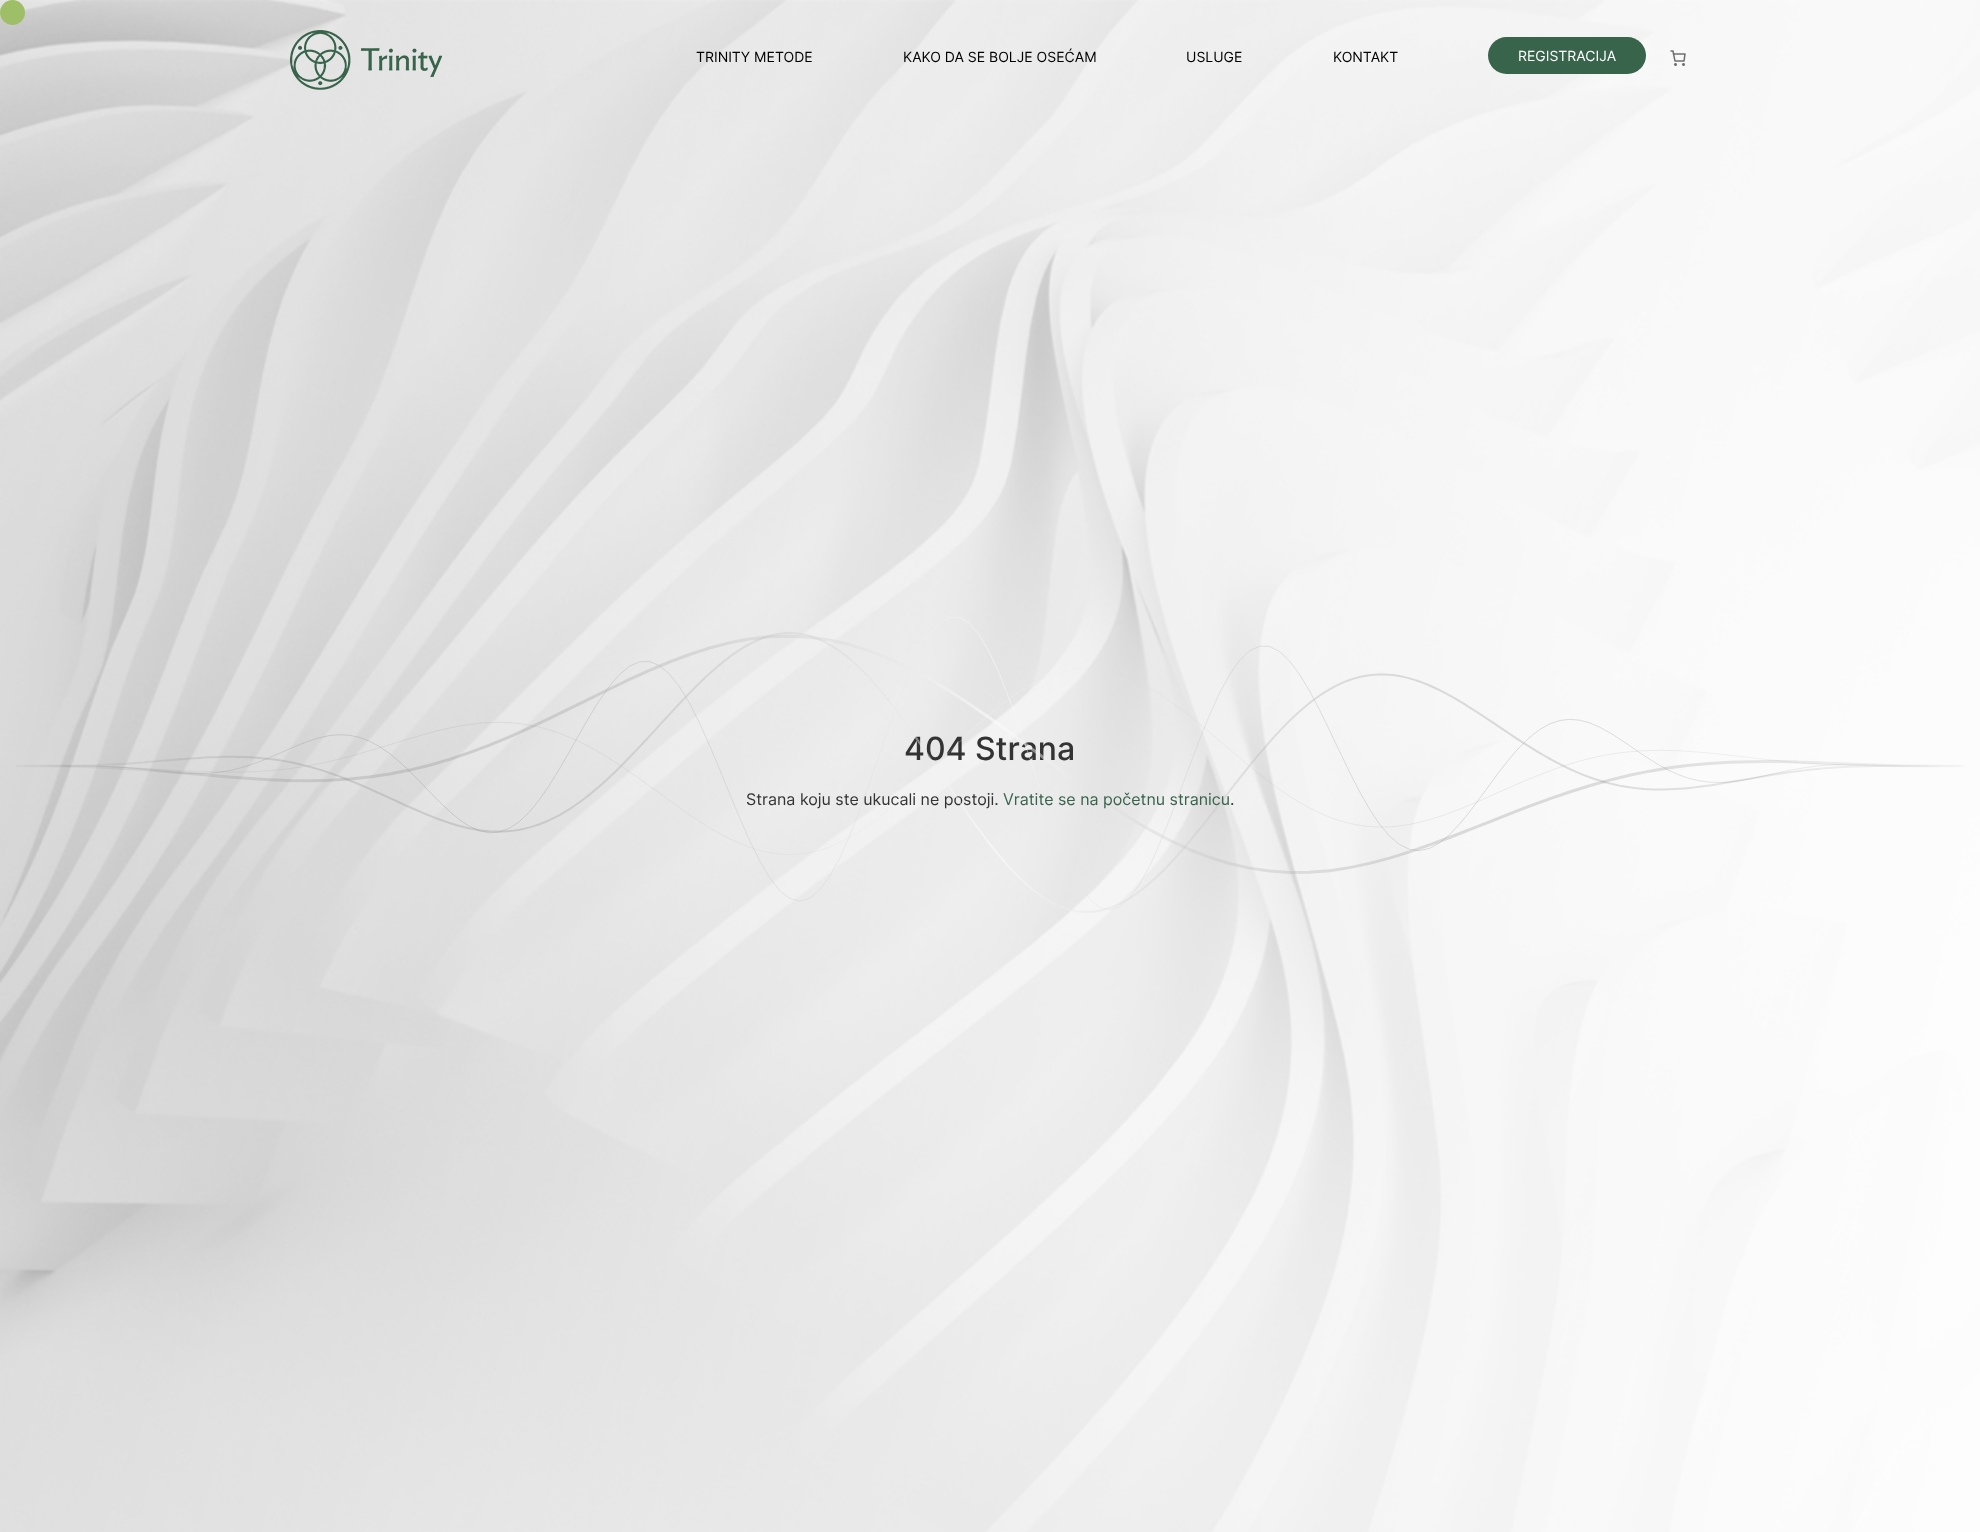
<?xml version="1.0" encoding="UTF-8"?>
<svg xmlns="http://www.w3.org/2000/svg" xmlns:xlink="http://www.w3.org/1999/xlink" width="1980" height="1532">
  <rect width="100%" height="100%" fill="#ffffff" />
  <image x="0" y="0" width="1980" height="1532" xlink:href="image4.png" />
  <circle cx="12.5" cy="12.5" r="12.5" fill="#9ebf68" />
  <image x="290" y="30" width="152" height="60" xlink:href="image1.png" />
  <rect x="1488" y="37" width="158" height="37" rx="18.5" fill="#38644c" />
  <image x="1670" y="50" width="16" height="16" xlink:href="image2.png" />
  <text x="696" y="62" style="font-family: Inter; font-size: 14px; fill: #000000">TRINITY METODE</text>
  <text x="903" y="62" style="font-family: Inter; font-size: 14px; fill: #000000">KAKO DA SE BOLJE OSEĆAM</text>
  <text x="1186" y="62" style="font-family: Inter; font-size: 14px; fill: #000000">USLUGE</text>
  <text x="1333" y="62" style="font-family: Inter; font-size: 14px; fill: #000000">KONTAKT</text>
  <text x="1518" y="61" style="font-family: Inter; font-size: 14px; fill: #ffffff">REGISTRACIJA</text>
  <text x="904" y="760" style="font-family: Inter; font-size: 32px; font-weight: 500; fill: #333333">404 Strana</text>
  <text x="746" y="805" style="font-family: Inter; font-size: 16px; fill: #333333">Strana koju ste ukucali ne postoji.</text>
  <text x="1230" y="805" style="font-family: Inter; font-size: 16px; fill: #333333">.</text>
  <image x="16" y="617" width="1948" height="296" xlink:href="image3.png" />
  <text x="1003" y="805" style="font-family: Inter; font-size: 16px; fill: #38644c">Vratite se na početnu stranicu</text>
</svg>
